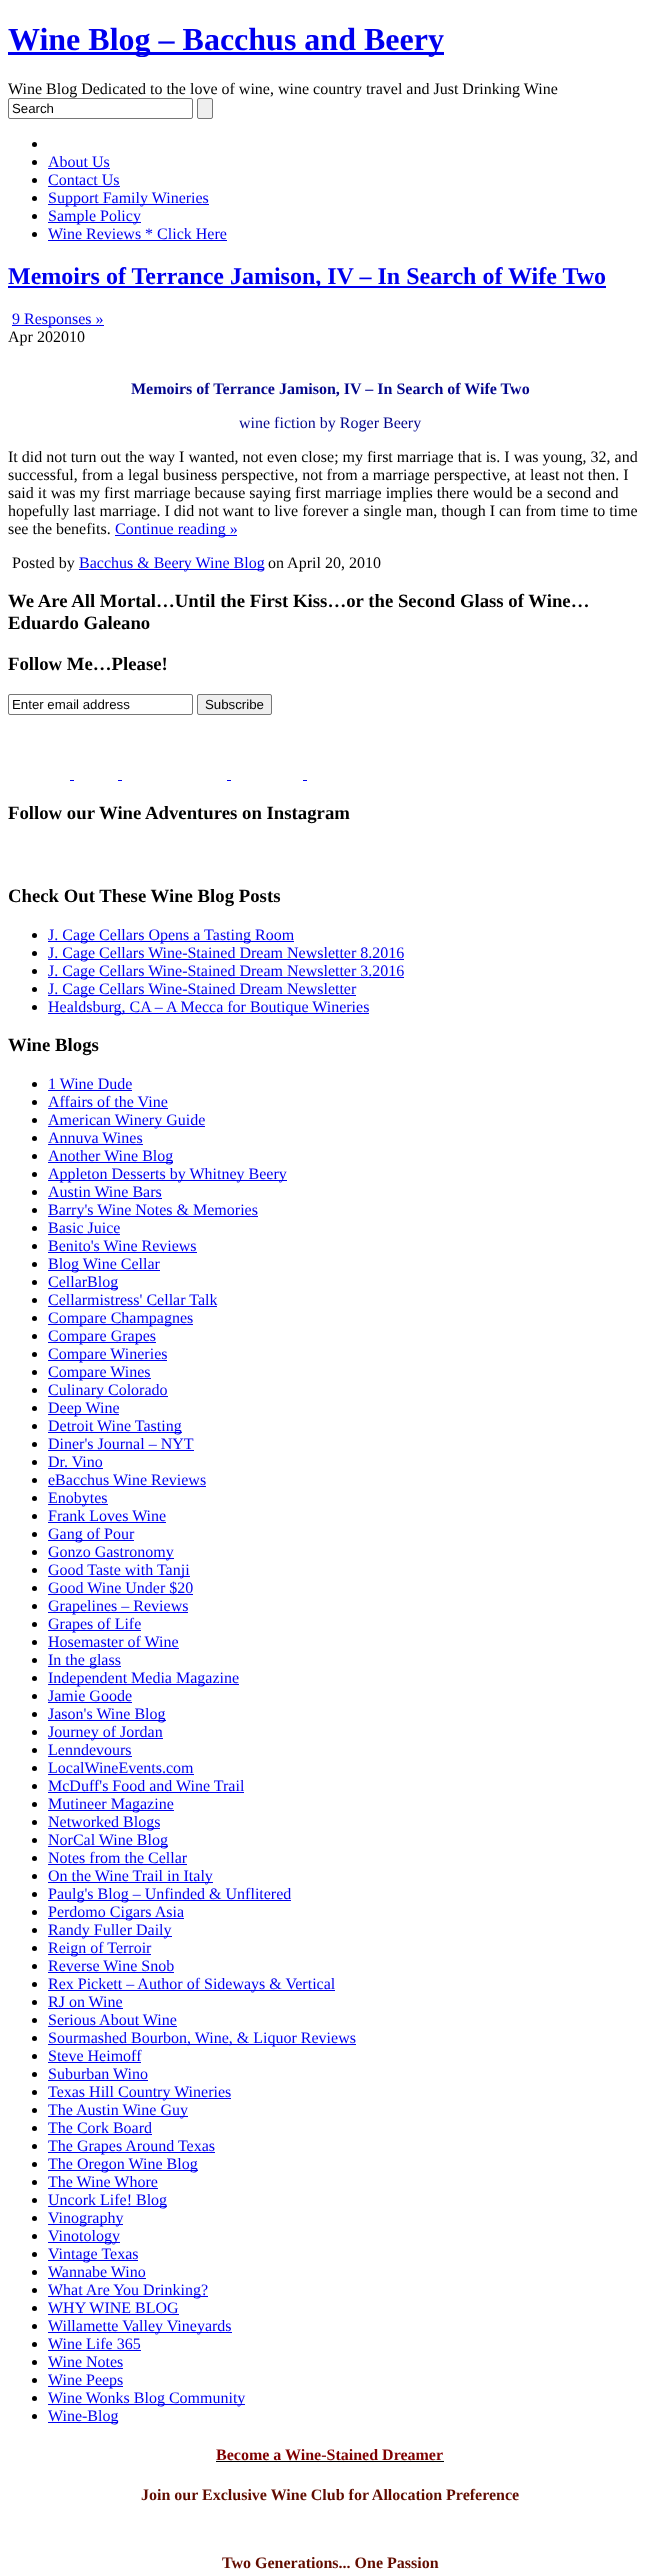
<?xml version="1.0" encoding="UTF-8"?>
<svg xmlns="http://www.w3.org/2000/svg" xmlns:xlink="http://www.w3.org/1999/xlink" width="660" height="2570">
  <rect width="100%" height="100%" fill="#ffffff" />
  <rect x="8" y="52" width="436" height="3" fill="#0000ee" />
  <rect x="8.5" y="98.5" width="184" height="20" rx="1.5" fill="none" stroke="#767676" />
  <rect x="197.5" y="98.5" width="15" height="20" rx="1.5" fill="#efefef" stroke="#767676" />
  <circle cx="34.5" cy="144.5" r="2.5" fill="#000000" />
  <circle cx="34.5" cy="162.5" r="2.5" fill="#000000" />
  <rect x="48" y="168" width="62" height="1" fill="#0000ee" />
  <circle cx="34.5" cy="180.5" r="2.5" fill="#000000" />
  <rect x="48" y="186" width="72" height="1" fill="#0000ee" />
  <circle cx="34.5" cy="198.5" r="2.5" fill="#000000" />
  <rect x="48" y="204" width="161" height="1" fill="#0000ee" />
  <circle cx="34.5" cy="216.5" r="2.5" fill="#000000" />
  <rect x="48" y="222" width="93" height="1" fill="#0000ee" />
  <circle cx="34.5" cy="234.5" r="2.5" fill="#000000" />
  <rect x="48" y="240" width="179" height="1" fill="#0000ee" />
  <rect x="8" y="286" width="598" height="2" fill="#0000ee" />
  <rect x="12" y="325" width="92" height="1" fill="#0000ee" />
  <rect x="115" y="535" width="122" height="1" fill="#0000ee" />
  <rect x="79" y="569" width="185" height="1" fill="#0000ee" />
  <rect x="8.5" y="694.5" width="184" height="20" rx="1.5" fill="none" stroke="#767676" />
  <rect x="197.5" y="694.5" width="74" height="20" rx="1.5" fill="#efefef" stroke="#767676" />
  <rect x="70" y="780" width="4" height="1" fill="#0000ee" />
  <rect x="118" y="780" width="4" height="1" fill="#0000ee" />
  <rect x="227" y="780" width="4" height="1" fill="#0000ee" />
  <rect x="303" y="780" width="4" height="1" fill="#0000ee" />
  <circle cx="34.5" cy="935.5" r="2.5" fill="#000000" />
  <rect x="48" y="941" width="246" height="1" fill="#0000ee" />
  <circle cx="34.5" cy="953.5" r="2.5" fill="#000000" />
  <rect x="48" y="959" width="356" height="1" fill="#0000ee" />
  <circle cx="34.5" cy="971.5" r="2.5" fill="#000000" />
  <rect x="48" y="977" width="356" height="1" fill="#0000ee" />
  <circle cx="34.5" cy="989.5" r="2.5" fill="#000000" />
  <rect x="48" y="995" width="308" height="1" fill="#0000ee" />
  <circle cx="34.5" cy="1007.5" r="2.5" fill="#000000" />
  <rect x="48" y="1013" width="321" height="1" fill="#0000ee" />
  <circle cx="34.5" cy="1084.5" r="2.5" fill="#000000" />
  <rect x="48" y="1090" width="84" height="1" fill="#0000ee" />
  <circle cx="34.5" cy="1102.5" r="2.5" fill="#000000" />
  <rect x="48" y="1108" width="120" height="1" fill="#0000ee" />
  <circle cx="34.5" cy="1120.5" r="2.5" fill="#000000" />
  <rect x="48" y="1126" width="157" height="1" fill="#0000ee" />
  <circle cx="34.5" cy="1138.5" r="2.5" fill="#000000" />
  <rect x="48" y="1144" width="95" height="1" fill="#0000ee" />
  <circle cx="34.5" cy="1156.5" r="2.5" fill="#000000" />
  <rect x="48" y="1162" width="125" height="1" fill="#0000ee" />
  <circle cx="34.5" cy="1174.5" r="2.5" fill="#000000" />
  <rect x="48" y="1180" width="239" height="1" fill="#0000ee" />
  <circle cx="34.5" cy="1192.5" r="2.5" fill="#000000" />
  <rect x="48" y="1198" width="114" height="1" fill="#0000ee" />
  <circle cx="34.5" cy="1210.5" r="2.5" fill="#000000" />
  <rect x="48" y="1216" width="210" height="1" fill="#0000ee" />
  <circle cx="34.5" cy="1228.5" r="2.5" fill="#000000" />
  <rect x="48" y="1234" width="72" height="1" fill="#0000ee" />
  <circle cx="34.5" cy="1246.5" r="2.5" fill="#000000" />
  <rect x="48" y="1252" width="149" height="1" fill="#0000ee" />
  <circle cx="34.5" cy="1264.5" r="2.5" fill="#000000" />
  <rect x="48" y="1270" width="112" height="1" fill="#0000ee" />
  <circle cx="34.5" cy="1282.5" r="2.5" fill="#000000" />
  <rect x="48" y="1288" width="70" height="1" fill="#0000ee" />
  <circle cx="34.5" cy="1300.5" r="2.5" fill="#000000" />
  <rect x="48" y="1306" width="169" height="1" fill="#0000ee" />
  <circle cx="34.5" cy="1318.5" r="2.5" fill="#000000" />
  <rect x="48" y="1324" width="145" height="1" fill="#0000ee" />
  <circle cx="34.5" cy="1336.5" r="2.5" fill="#000000" />
  <rect x="48" y="1342" width="108" height="1" fill="#0000ee" />
  <circle cx="34.5" cy="1354.5" r="2.5" fill="#000000" />
  <rect x="48" y="1360" width="119" height="1" fill="#0000ee" />
  <circle cx="34.5" cy="1372.5" r="2.5" fill="#000000" />
  <rect x="48" y="1378" width="103" height="1" fill="#0000ee" />
  <circle cx="34.5" cy="1390.5" r="2.5" fill="#000000" />
  <rect x="48" y="1396" width="120" height="1" fill="#0000ee" />
  <circle cx="34.5" cy="1408.5" r="2.5" fill="#000000" />
  <rect x="48" y="1414" width="71" height="1" fill="#0000ee" />
  <circle cx="34.5" cy="1426.5" r="2.5" fill="#000000" />
  <rect x="48" y="1432" width="134" height="1" fill="#0000ee" />
  <circle cx="34.5" cy="1444.5" r="2.5" fill="#000000" />
  <rect x="48" y="1450" width="146" height="1" fill="#0000ee" />
  <circle cx="34.5" cy="1462.5" r="2.5" fill="#000000" />
  <rect x="48" y="1468" width="55" height="1" fill="#0000ee" />
  <circle cx="34.5" cy="1480.5" r="2.5" fill="#000000" />
  <rect x="48" y="1486" width="158" height="1" fill="#0000ee" />
  <circle cx="34.5" cy="1498.5" r="2.5" fill="#000000" />
  <rect x="48" y="1504" width="60" height="1" fill="#0000ee" />
  <circle cx="34.5" cy="1516.5" r="2.5" fill="#000000" />
  <rect x="48" y="1522" width="118" height="1" fill="#0000ee" />
  <circle cx="34.5" cy="1534.5" r="2.5" fill="#000000" />
  <rect x="48" y="1540" width="86" height="1" fill="#0000ee" />
  <circle cx="34.5" cy="1552.5" r="2.5" fill="#000000" />
  <rect x="48" y="1558" width="126" height="1" fill="#0000ee" />
  <circle cx="34.5" cy="1570.5" r="2.5" fill="#000000" />
  <rect x="48" y="1576" width="142" height="1" fill="#0000ee" />
  <circle cx="34.5" cy="1588.5" r="2.5" fill="#000000" />
  <rect x="48" y="1594" width="145" height="1" fill="#0000ee" />
  <circle cx="34.5" cy="1606.5" r="2.5" fill="#000000" />
  <rect x="48" y="1612" width="140" height="1" fill="#0000ee" />
  <circle cx="34.5" cy="1624.5" r="2.5" fill="#000000" />
  <rect x="48" y="1630" width="93" height="1" fill="#0000ee" />
  <circle cx="34.5" cy="1642.5" r="2.5" fill="#000000" />
  <rect x="48" y="1648" width="131" height="1" fill="#0000ee" />
  <circle cx="34.5" cy="1660.5" r="2.5" fill="#000000" />
  <rect x="48" y="1666" width="73" height="1" fill="#0000ee" />
  <circle cx="34.5" cy="1678.5" r="2.5" fill="#000000" />
  <rect x="48" y="1684" width="191" height="1" fill="#0000ee" />
  <circle cx="34.5" cy="1696.5" r="2.5" fill="#000000" />
  <rect x="48" y="1702" width="84" height="1" fill="#0000ee" />
  <circle cx="34.5" cy="1714.5" r="2.5" fill="#000000" />
  <rect x="48" y="1720" width="118" height="1" fill="#0000ee" />
  <circle cx="34.5" cy="1732.5" r="2.5" fill="#000000" />
  <rect x="48" y="1738" width="115" height="1" fill="#0000ee" />
  <circle cx="34.5" cy="1750.5" r="2.5" fill="#000000" />
  <rect x="48" y="1756" width="84" height="1" fill="#0000ee" />
  <circle cx="34.5" cy="1768.5" r="2.5" fill="#000000" />
  <rect x="48" y="1774" width="146" height="1" fill="#0000ee" />
  <circle cx="34.5" cy="1786.5" r="2.5" fill="#000000" />
  <rect x="48" y="1792" width="196" height="1" fill="#0000ee" />
  <circle cx="34.5" cy="1804.5" r="2.5" fill="#000000" />
  <rect x="48" y="1810" width="126" height="1" fill="#0000ee" />
  <circle cx="34.5" cy="1822.5" r="2.5" fill="#000000" />
  <rect x="48" y="1828" width="112" height="1" fill="#0000ee" />
  <circle cx="34.5" cy="1840.5" r="2.5" fill="#000000" />
  <rect x="48" y="1846" width="120" height="1" fill="#0000ee" />
  <circle cx="34.5" cy="1858.5" r="2.5" fill="#000000" />
  <rect x="48" y="1864" width="139" height="1" fill="#0000ee" />
  <circle cx="34.5" cy="1876.5" r="2.5" fill="#000000" />
  <rect x="48" y="1882" width="165" height="1" fill="#0000ee" />
  <circle cx="34.5" cy="1894.5" r="2.5" fill="#000000" />
  <rect x="48" y="1900" width="243" height="1" fill="#0000ee" />
  <circle cx="34.5" cy="1912.5" r="2.5" fill="#000000" />
  <rect x="48" y="1918" width="136" height="1" fill="#0000ee" />
  <circle cx="34.5" cy="1930.5" r="2.5" fill="#000000" />
  <rect x="48" y="1936" width="124" height="1" fill="#0000ee" />
  <circle cx="34.5" cy="1948.5" r="2.5" fill="#000000" />
  <rect x="48" y="1954" width="103" height="1" fill="#0000ee" />
  <circle cx="34.5" cy="1966.5" r="2.5" fill="#000000" />
  <rect x="48" y="1972" width="126" height="1" fill="#0000ee" />
  <circle cx="34.5" cy="1984.5" r="2.5" fill="#000000" />
  <rect x="48" y="1990" width="287" height="1" fill="#0000ee" />
  <circle cx="34.5" cy="2002.5" r="2.5" fill="#000000" />
  <rect x="48" y="2008" width="75" height="1" fill="#0000ee" />
  <circle cx="34.5" cy="2020.5" r="2.5" fill="#000000" />
  <rect x="48" y="2026" width="129" height="1" fill="#0000ee" />
  <circle cx="34.5" cy="2038.5" r="2.5" fill="#000000" />
  <rect x="48" y="2044" width="308" height="1" fill="#0000ee" />
  <circle cx="34.5" cy="2056.5" r="2.5" fill="#000000" />
  <rect x="48" y="2062" width="93" height="1" fill="#0000ee" />
  <circle cx="34.5" cy="2074.5" r="2.5" fill="#000000" />
  <rect x="48" y="2080" width="100" height="1" fill="#0000ee" />
  <circle cx="34.5" cy="2092.5" r="2.5" fill="#000000" />
  <rect x="48" y="2098" width="183" height="1" fill="#0000ee" />
  <circle cx="34.5" cy="2110.5" r="2.5" fill="#000000" />
  <rect x="48" y="2116" width="140" height="1" fill="#0000ee" />
  <circle cx="34.5" cy="2128.5" r="2.5" fill="#000000" />
  <rect x="48" y="2134" width="104" height="1" fill="#0000ee" />
  <circle cx="34.5" cy="2146.5" r="2.5" fill="#000000" />
  <rect x="48" y="2152" width="167" height="1" fill="#0000ee" />
  <circle cx="34.5" cy="2164.5" r="2.5" fill="#000000" />
  <rect x="48" y="2170" width="150" height="1" fill="#0000ee" />
  <circle cx="34.5" cy="2182.5" r="2.5" fill="#000000" />
  <rect x="48" y="2188" width="110" height="1" fill="#0000ee" />
  <circle cx="34.5" cy="2200.5" r="2.5" fill="#000000" />
  <rect x="48" y="2206" width="119" height="1" fill="#0000ee" />
  <circle cx="34.5" cy="2218.5" r="2.5" fill="#000000" />
  <rect x="48" y="2224" width="75" height="1" fill="#0000ee" />
  <circle cx="34.5" cy="2236.5" r="2.5" fill="#000000" />
  <rect x="48" y="2242" width="72" height="1" fill="#0000ee" />
  <circle cx="34.5" cy="2254.5" r="2.5" fill="#000000" />
  <rect x="48" y="2260" width="90" height="1" fill="#0000ee" />
  <circle cx="34.5" cy="2272.5" r="2.5" fill="#000000" />
  <rect x="48" y="2278" width="98" height="1" fill="#0000ee" />
  <circle cx="34.5" cy="2290.5" r="2.5" fill="#000000" />
  <rect x="48" y="2296" width="160" height="1" fill="#0000ee" />
  <circle cx="34.5" cy="2308.5" r="2.5" fill="#000000" />
  <rect x="48" y="2314" width="131" height="1" fill="#0000ee" />
  <circle cx="34.5" cy="2326.5" r="2.5" fill="#000000" />
  <rect x="48" y="2332" width="184" height="1" fill="#0000ee" />
  <circle cx="34.5" cy="2344.5" r="2.5" fill="#000000" />
  <rect x="48" y="2350" width="93" height="1" fill="#0000ee" />
  <circle cx="34.5" cy="2362.5" r="2.5" fill="#000000" />
  <rect x="48" y="2368" width="75" height="1" fill="#0000ee" />
  <circle cx="34.5" cy="2380.5" r="2.5" fill="#000000" />
  <rect x="48" y="2386" width="75" height="1" fill="#0000ee" />
  <circle cx="34.5" cy="2398.5" r="2.5" fill="#000000" />
  <rect x="48" y="2404" width="197" height="1" fill="#0000ee" />
  <circle cx="34.5" cy="2416.5" r="2.5" fill="#000000" />
  <rect x="48" y="2422" width="70" height="1" fill="#0000ee" />
  <rect x="216" y="2461" width="228" height="1" fill="#000000" />
  <text x="8" y="50" style="font-family: Liberation Serif; font-size: 32px; font-weight: bold; fill: #0000ee">Wine Blog – Bacchus and Beery</text>
  <text x="8" y="94" style="font-family: Liberation Serif; font-size: 16px; fill: #000000">Wine Blog Dedicated to the love of wine, wine country travel and Just Drinking Wine</text>
  <text x="12" y="113" style="font-family: Liberation Sans; font-size: 13.25px; fill: #000000">Search</text>
  <text x="48" y="167" style="font-family: Liberation Serif; font-size: 16px; fill: #0000ee">About Us</text>
  <text x="48" y="185" style="font-family: Liberation Serif; font-size: 16px; fill: #0000ee">Contact Us</text>
  <text x="48" y="203" style="font-family: Liberation Serif; font-size: 16px; fill: #0000ee">Support Family Wineries</text>
  <text x="48" y="221" style="font-family: Liberation Serif; font-size: 16px; fill: #0000ee">Sample Policy</text>
  <text x="48" y="239" style="font-family: Liberation Serif; font-size: 16px; fill: #0000ee">Wine Reviews * Click Here</text>
  <text x="8" y="284" style="font-family: Liberation Serif; font-size: 24px; font-weight: bold; fill: #0000ee">Memoirs of Terrance Jamison, IV – In Search of Wife Two</text>
  <text x="12" y="324" style="font-family: Liberation Serif; font-size: 16px; fill: #0000ee">9 Responses »</text>
  <text x="8" y="342" style="font-family: Liberation Serif; font-size: 16px; fill: #000000">Apr 202010</text>
  <text x="131" y="394" style="font-family: Liberation Serif; font-size: 16px; font-weight: bold; fill: #02058c">Memoirs of Terrance Jamison, IV – In Search of Wife Two</text>
  <text x="239" y="428" style="font-family: Liberation Serif; font-size: 16px; fill: #02058c">wine fiction by Roger Beery</text>
  <text x="8" y="462" style="font-family: Liberation Serif; font-size: 16px; fill: #000000">It did not turn out the way I wanted, not even close; my first marriage that is. I was young, 32, and</text>
  <text x="8" y="480" style="font-family: Liberation Serif; font-size: 16px; fill: #000000">successful, from a legal business perspective, not from a marriage perspective, at least not then. I</text>
  <text x="8" y="498" style="font-family: Liberation Serif; font-size: 16px; fill: #000000">said it was my first marriage because saying first marriage implies there would be a second and</text>
  <text x="8" y="516" style="font-family: Liberation Serif; font-size: 16px; fill: #000000">hopefully last marriage. I did not want to live forever a single man, though I can from time to time</text>
  <text x="8" y="534" style="font-family: Liberation Serif; font-size: 16px; fill: #000000">see the benefits.</text>
  <text x="115" y="534" style="font-family: Liberation Serif; font-size: 16px; fill: #0000ee">Continue reading »</text>
  <text x="12" y="568" style="font-family: Liberation Serif; font-size: 16px; fill: #000000">Posted by</text>
  <text x="79" y="568" style="font-family: Liberation Serif; font-size: 16px; fill: #0000ee">Bacchus &amp; Beery Wine Blog</text>
  <text x="268" y="568" style="font-family: Liberation Serif; font-size: 16px; fill: #000000">on April 20, 2010</text>
  <text x="8" y="607" style="font-family: Liberation Serif; font-size: 18.75px; font-weight: bold; fill: #000000">We Are All Mortal…Until the First Kiss…or the Second Glass of Wine…</text>
  <text x="8" y="629" style="font-family: Liberation Serif; font-size: 18.75px; font-weight: bold; fill: #000000">Eduardo Galeano</text>
  <text x="8" y="670" style="font-family: Liberation Serif; font-size: 18.75px; font-weight: bold; fill: #000000">Follow Me…Please!</text>
  <text x="12" y="709" style="font-family: Liberation Sans; font-size: 13.25px; fill: #000000">Enter email address</text>
  <text x="205" y="709" style="font-family: Liberation Sans; font-size: 13.25px; fill: #000000">Subscribe</text>
  <text x="8" y="819" style="font-family: Liberation Serif; font-size: 18.75px; font-weight: bold; fill: #000000">Follow our Wine Adventures on Instagram</text>
  <text x="8" y="902" style="font-family: Liberation Serif; font-size: 18.75px; font-weight: bold; fill: #000000">Check Out These Wine Blog Posts</text>
  <text x="48" y="940" style="font-family: Liberation Serif; font-size: 16px; fill: #0000ee">J. Cage Cellars Opens a Tasting Room</text>
  <text x="48" y="958" style="font-family: Liberation Serif; font-size: 16px; fill: #0000ee">J. Cage Cellars Wine-Stained Dream Newsletter 8.2016</text>
  <text x="48" y="976" style="font-family: Liberation Serif; font-size: 16px; fill: #0000ee">J. Cage Cellars Wine-Stained Dream Newsletter 3.2016</text>
  <text x="48" y="994" style="font-family: Liberation Serif; font-size: 16px; fill: #0000ee">J. Cage Cellars Wine-Stained Dream Newsletter</text>
  <text x="48" y="1012" style="font-family: Liberation Serif; font-size: 16px; fill: #0000ee">Healdsburg, CA – A Mecca for Boutique Wineries</text>
  <text x="8" y="1051" style="font-family: Liberation Serif; font-size: 18.75px; font-weight: bold; fill: #000000">Wine Blogs</text>
  <text x="48" y="1089" style="font-family: Liberation Serif; font-size: 16px; fill: #0000ee">1 Wine Dude</text>
  <text x="48" y="1107" style="font-family: Liberation Serif; font-size: 16px; fill: #0000ee">Affairs of the Vine</text>
  <text x="48" y="1125" style="font-family: Liberation Serif; font-size: 16px; fill: #0000ee">American Winery Guide</text>
  <text x="48" y="1143" style="font-family: Liberation Serif; font-size: 16px; fill: #0000ee">Annuva Wines</text>
  <text x="48" y="1161" style="font-family: Liberation Serif; font-size: 16px; fill: #0000ee">Another Wine Blog</text>
  <text x="48" y="1179" style="font-family: Liberation Serif; font-size: 16px; fill: #0000ee">Appleton Desserts by Whitney Beery</text>
  <text x="48" y="1197" style="font-family: Liberation Serif; font-size: 16px; fill: #0000ee">Austin Wine Bars</text>
  <text x="48" y="1215" style="font-family: Liberation Serif; font-size: 16px; fill: #0000ee">Barry's Wine Notes &amp; Memories</text>
  <text x="48" y="1233" style="font-family: Liberation Serif; font-size: 16px; fill: #0000ee">Basic Juice</text>
  <text x="48" y="1251" style="font-family: Liberation Serif; font-size: 16px; fill: #0000ee">Benito's Wine Reviews</text>
  <text x="48" y="1269" style="font-family: Liberation Serif; font-size: 16px; fill: #0000ee">Blog Wine Cellar</text>
  <text x="48" y="1287" style="font-family: Liberation Serif; font-size: 16px; fill: #0000ee">CellarBlog</text>
  <text x="48" y="1305" style="font-family: Liberation Serif; font-size: 16px; fill: #0000ee">Cellarmistress' Cellar Talk</text>
  <text x="48" y="1323" style="font-family: Liberation Serif; font-size: 16px; fill: #0000ee">Compare Champagnes</text>
  <text x="48" y="1341" style="font-family: Liberation Serif; font-size: 16px; fill: #0000ee">Compare Grapes</text>
  <text x="48" y="1359" style="font-family: Liberation Serif; font-size: 16px; fill: #0000ee">Compare Wineries</text>
  <text x="48" y="1377" style="font-family: Liberation Serif; font-size: 16px; fill: #0000ee">Compare Wines</text>
  <text x="48" y="1395" style="font-family: Liberation Serif; font-size: 16px; fill: #0000ee">Culinary Colorado</text>
  <text x="48" y="1413" style="font-family: Liberation Serif; font-size: 16px; fill: #0000ee">Deep Wine</text>
  <text x="48" y="1431" style="font-family: Liberation Serif; font-size: 16px; fill: #0000ee">Detroit Wine Tasting</text>
  <text x="48" y="1449" style="font-family: Liberation Serif; font-size: 16px; fill: #0000ee">Diner's Journal – NYT</text>
  <text x="48" y="1467" style="font-family: Liberation Serif; font-size: 16px; fill: #0000ee">Dr. Vino</text>
  <text x="48" y="1485" style="font-family: Liberation Serif; font-size: 16px; fill: #0000ee">eBacchus Wine Reviews</text>
  <text x="48" y="1503" style="font-family: Liberation Serif; font-size: 16px; fill: #0000ee">Enobytes</text>
  <text x="48" y="1521" style="font-family: Liberation Serif; font-size: 16px; fill: #0000ee">Frank Loves Wine</text>
  <text x="48" y="1539" style="font-family: Liberation Serif; font-size: 16px; fill: #0000ee">Gang of Pour</text>
  <text x="48" y="1557" style="font-family: Liberation Serif; font-size: 16px; fill: #0000ee">Gonzo Gastronomy</text>
  <text x="48" y="1575" style="font-family: Liberation Serif; font-size: 16px; fill: #0000ee">Good Taste with Tanji</text>
  <text x="48" y="1593" style="font-family: Liberation Serif; font-size: 16px; fill: #0000ee">Good Wine Under $20</text>
  <text x="48" y="1611" style="font-family: Liberation Serif; font-size: 16px; fill: #0000ee">Grapelines – Reviews</text>
  <text x="48" y="1629" style="font-family: Liberation Serif; font-size: 16px; fill: #0000ee">Grapes of Life</text>
  <text x="48" y="1647" style="font-family: Liberation Serif; font-size: 16px; fill: #0000ee">Hosemaster of Wine</text>
  <text x="48" y="1665" style="font-family: Liberation Serif; font-size: 16px; fill: #0000ee">In the glass</text>
  <text x="48" y="1683" style="font-family: Liberation Serif; font-size: 16px; fill: #0000ee">Independent Media Magazine</text>
  <text x="48" y="1701" style="font-family: Liberation Serif; font-size: 16px; fill: #0000ee">Jamie Goode</text>
  <text x="48" y="1719" style="font-family: Liberation Serif; font-size: 16px; fill: #0000ee">Jason's Wine Blog</text>
  <text x="48" y="1737" style="font-family: Liberation Serif; font-size: 16px; fill: #0000ee">Journey of Jordan</text>
  <text x="48" y="1755" style="font-family: Liberation Serif; font-size: 16px; fill: #0000ee">Lenndevours</text>
  <text x="48" y="1773" style="font-family: Liberation Serif; font-size: 16px; fill: #0000ee">LocalWineEvents.com</text>
  <text x="48" y="1791" style="font-family: Liberation Serif; font-size: 16px; fill: #0000ee">McDuff's Food and Wine Trail</text>
  <text x="48" y="1809" style="font-family: Liberation Serif; font-size: 16px; fill: #0000ee">Mutineer Magazine</text>
  <text x="48" y="1827" style="font-family: Liberation Serif; font-size: 16px; fill: #0000ee">Networked Blogs</text>
  <text x="48" y="1845" style="font-family: Liberation Serif; font-size: 16px; fill: #0000ee">NorCal Wine Blog</text>
  <text x="48" y="1863" style="font-family: Liberation Serif; font-size: 16px; fill: #0000ee">Notes from the Cellar</text>
  <text x="48" y="1881" style="font-family: Liberation Serif; font-size: 16px; fill: #0000ee">On the Wine Trail in Italy</text>
  <text x="48" y="1899" style="font-family: Liberation Serif; font-size: 16px; fill: #0000ee">Paulg's Blog – Unfinded &amp; Unflitered</text>
  <text x="48" y="1917" style="font-family: Liberation Serif; font-size: 16px; fill: #0000ee">Perdomo Cigars Asia</text>
  <text x="48" y="1935" style="font-family: Liberation Serif; font-size: 16px; fill: #0000ee">Randy Fuller Daily</text>
  <text x="48" y="1953" style="font-family: Liberation Serif; font-size: 16px; fill: #0000ee">Reign of Terroir</text>
  <text x="48" y="1971" style="font-family: Liberation Serif; font-size: 16px; fill: #0000ee">Reverse Wine Snob</text>
  <text x="48" y="1989" style="font-family: Liberation Serif; font-size: 16px; fill: #0000ee">Rex Pickett – Author of Sideways &amp; Vertical</text>
  <text x="48" y="2007" style="font-family: Liberation Serif; font-size: 16px; fill: #0000ee">RJ on Wine</text>
  <text x="48" y="2025" style="font-family: Liberation Serif; font-size: 16px; fill: #0000ee">Serious About Wine</text>
  <text x="48" y="2043" style="font-family: Liberation Serif; font-size: 16px; fill: #0000ee">Sourmashed Bourbon, Wine, &amp; Liquor Reviews</text>
  <text x="48" y="2061" style="font-family: Liberation Serif; font-size: 16px; fill: #0000ee">Steve Heimoff</text>
  <text x="48" y="2079" style="font-family: Liberation Serif; font-size: 16px; fill: #0000ee">Suburban Wino</text>
  <text x="48" y="2097" style="font-family: Liberation Serif; font-size: 16px; fill: #0000ee">Texas Hill Country Wineries</text>
  <text x="48" y="2115" style="font-family: Liberation Serif; font-size: 16px; fill: #0000ee">The Austin Wine Guy</text>
  <text x="48" y="2133" style="font-family: Liberation Serif; font-size: 16px; fill: #0000ee">The Cork Board</text>
  <text x="48" y="2151" style="font-family: Liberation Serif; font-size: 16px; fill: #0000ee">The Grapes Around Texas</text>
  <text x="48" y="2169" style="font-family: Liberation Serif; font-size: 16px; fill: #0000ee">The Oregon Wine Blog</text>
  <text x="48" y="2187" style="font-family: Liberation Serif; font-size: 16px; fill: #0000ee">The Wine Whore</text>
  <text x="48" y="2205" style="font-family: Liberation Serif; font-size: 16px; fill: #0000ee">Uncork Life! Blog</text>
  <text x="48" y="2223" style="font-family: Liberation Serif; font-size: 16px; fill: #0000ee">Vinography</text>
  <text x="48" y="2241" style="font-family: Liberation Serif; font-size: 16px; fill: #0000ee">Vinotology</text>
  <text x="48" y="2259" style="font-family: Liberation Serif; font-size: 16px; fill: #0000ee">Vintage Texas</text>
  <text x="48" y="2277" style="font-family: Liberation Serif; font-size: 16px; fill: #0000ee">Wannabe Wino</text>
  <text x="48" y="2295" style="font-family: Liberation Serif; font-size: 16px; fill: #0000ee">What Are You Drinking?</text>
  <text x="48" y="2313" style="font-family: Liberation Serif; font-size: 16px; fill: #0000ee">WHY WINE BLOG</text>
  <text x="48" y="2331" style="font-family: Liberation Serif; font-size: 16px; fill: #0000ee">Willamette Valley Vineyards</text>
  <text x="48" y="2349" style="font-family: Liberation Serif; font-size: 16px; fill: #0000ee">Wine Life 365</text>
  <text x="48" y="2367" style="font-family: Liberation Serif; font-size: 16px; fill: #0000ee">Wine Notes</text>
  <text x="48" y="2385" style="font-family: Liberation Serif; font-size: 16px; fill: #0000ee">Wine Peeps</text>
  <text x="48" y="2403" style="font-family: Liberation Serif; font-size: 16px; fill: #0000ee">Wine Wonks Blog Community</text>
  <text x="48" y="2421" style="font-family: Liberation Serif; font-size: 16px; fill: #0000ee">Wine-Blog</text>
  <text x="216" y="2460" style="font-family: Liberation Serif; font-size: 16px; font-weight: bold; fill: #800000">Become a Wine-Stained Dreamer</text>
  <text x="141" y="2500" style="font-family: Liberation Serif; font-size: 16px; font-weight: bold; fill: #610c00">Join our Exclusive Wine Club for Allocation Preference</text>
  <text x="222" y="2568" style="font-family: Liberation Serif; font-size: 16px; font-weight: bold; fill: #610c00">Two Generations... One Passion</text>
</svg>
